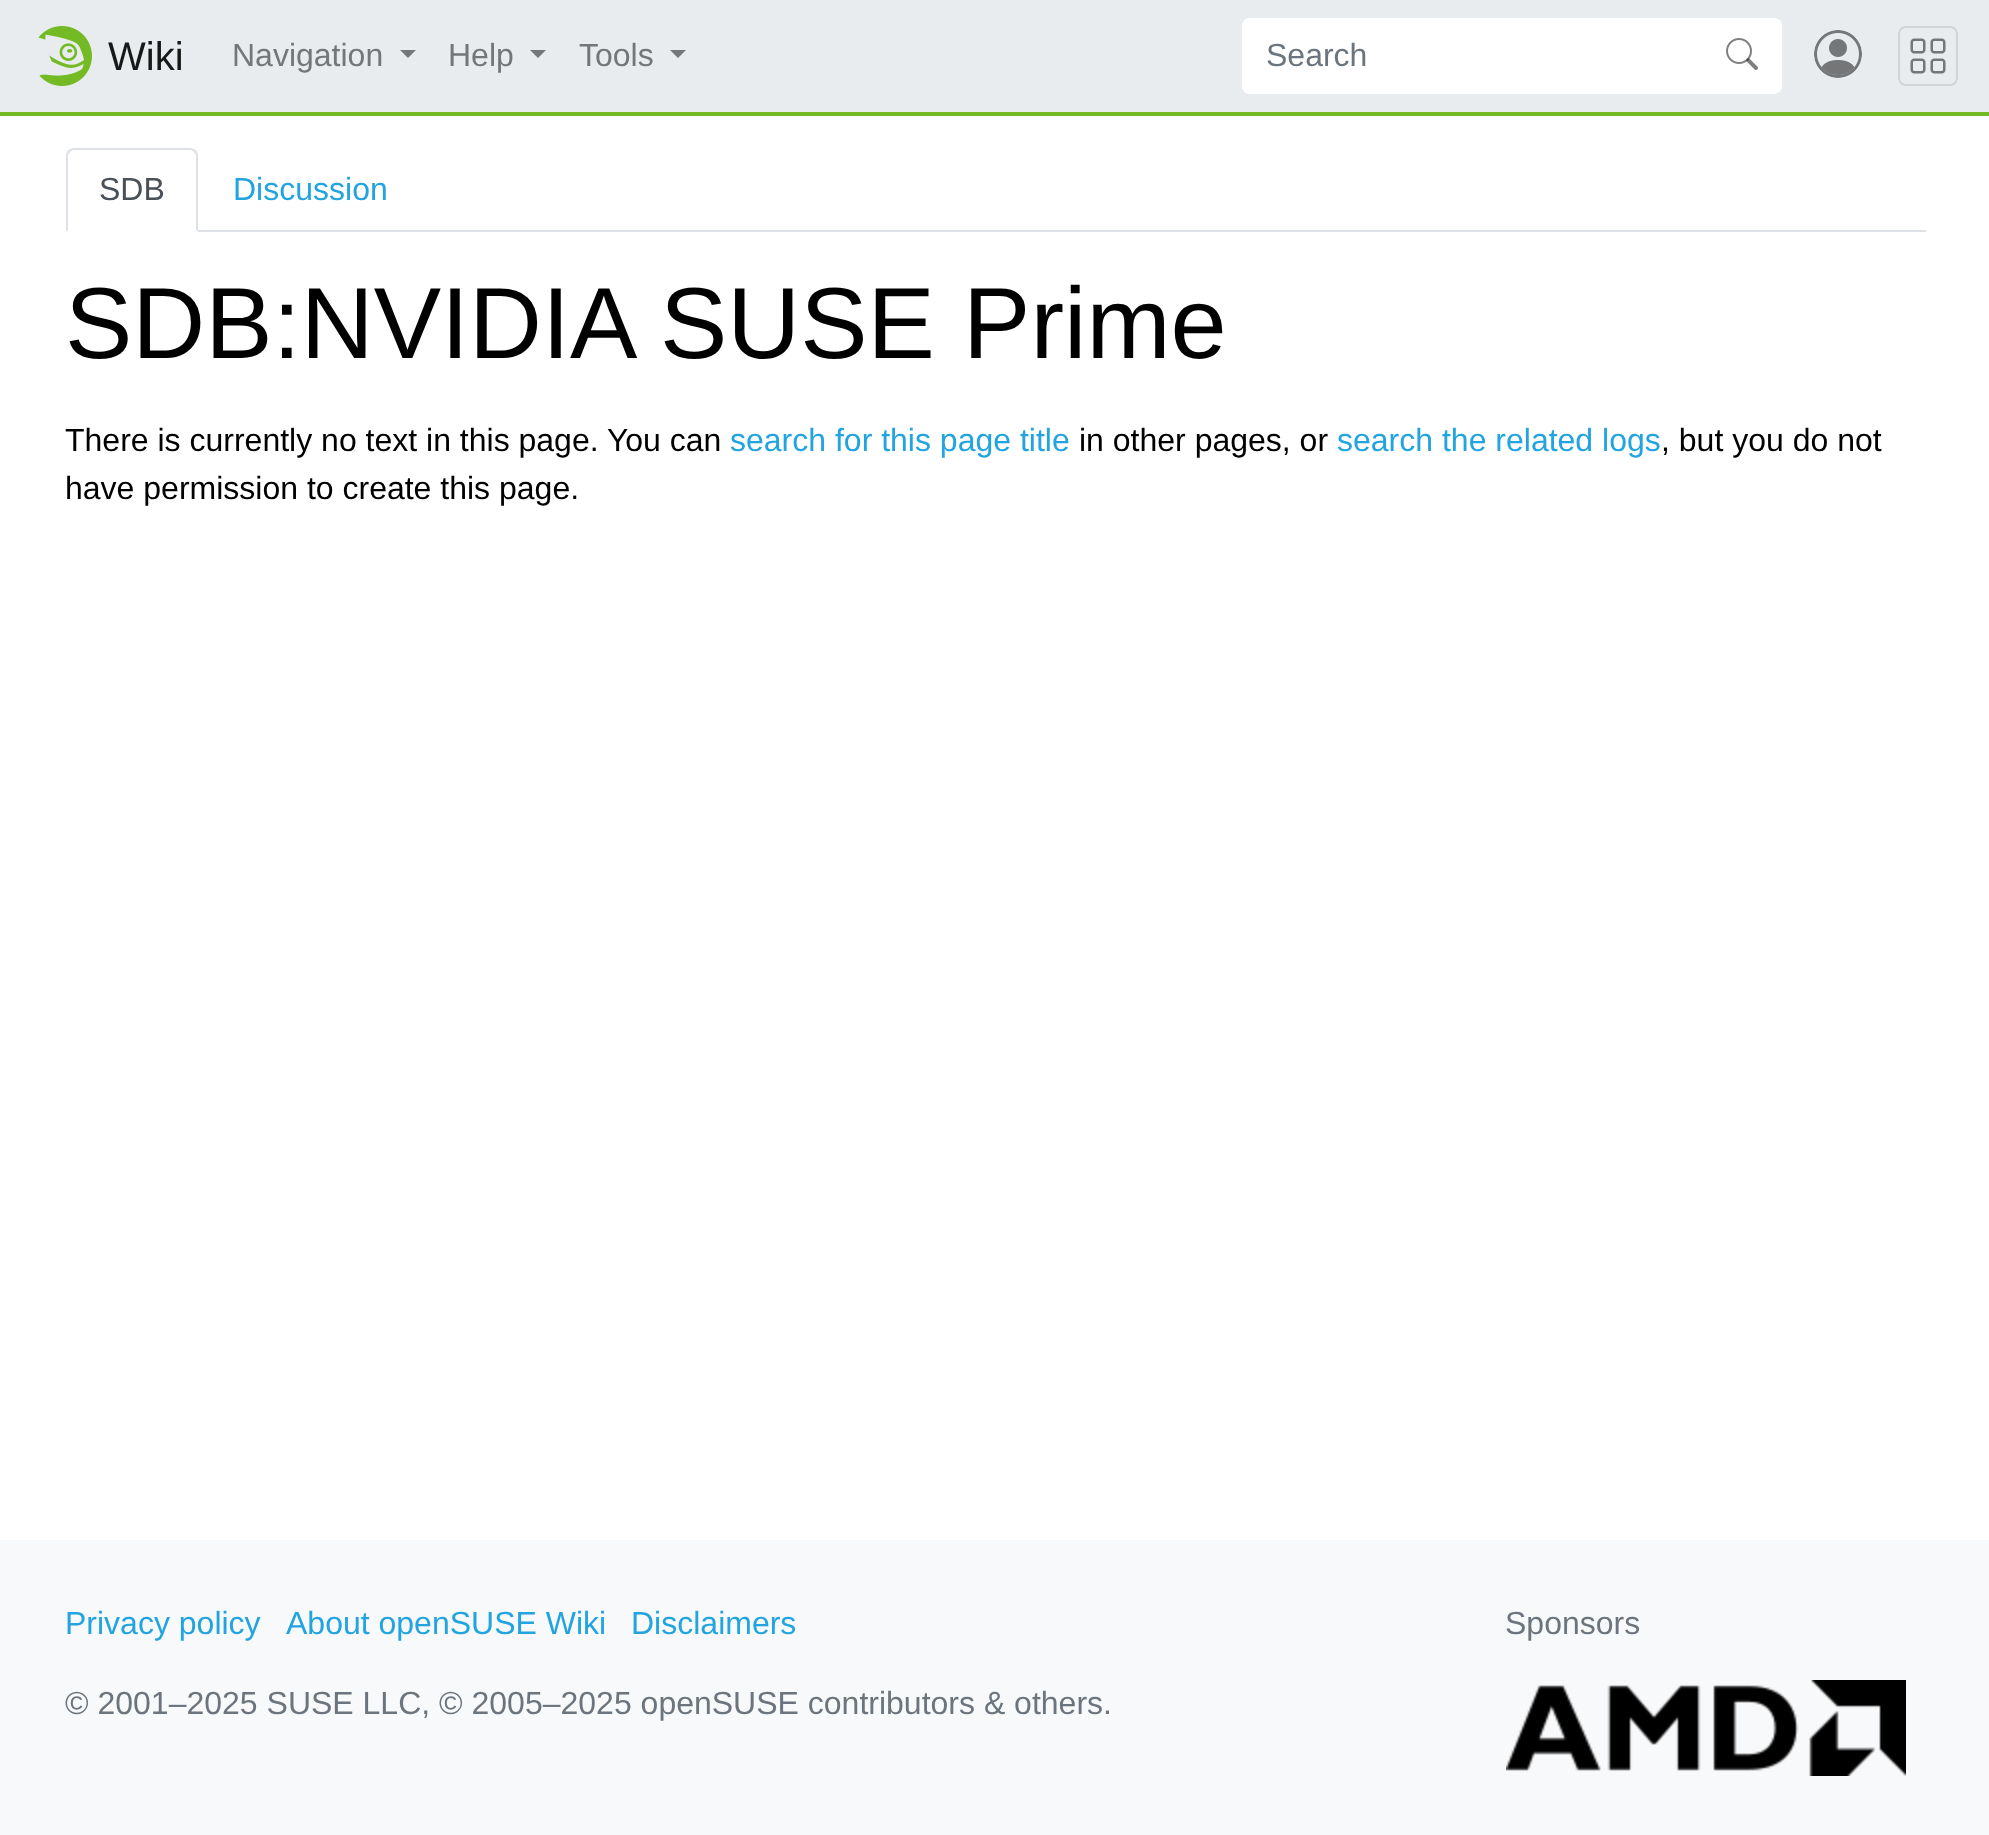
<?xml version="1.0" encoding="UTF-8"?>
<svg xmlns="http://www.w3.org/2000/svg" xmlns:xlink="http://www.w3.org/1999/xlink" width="1989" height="1835">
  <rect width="100%" height="100%" fill="#ffffff" />
  <rect width="1989" height="112" fill="#e9ecef" />
  <rect y="112" width="1989" height="4" fill="#73ba25" />
  <image x="38" y="26" width="54" height="60" xlink:href="image1.png" />
  <path d="M 400 50 h 16 l -8 8 z" fill="#757678" />
  <path d="M 530 50 h 16 l -8 8 z" fill="#757678" />
  <path d="M 670 50 h 16 l -8 8 z" fill="#757678" />
  <path d="M 1250 18 h 454 v 76 h -454 c -4.5 0 -8 -3.5 -8 -8 v -60 c 0 -4.5 3.5 -8 8 -8 z" fill="#ffffff" />
  <path d="M 1702 18 h 72 c 4.5 0 8 3.5 8 8 v 60 c 0 4.5 -3.5 8 -8 8 h -72 z" fill="#ffffff" />
  <image x="1726" y="38" width="32" height="32" xlink:href="image2.png" />
  <image x="1814" y="30" width="48" height="48" xlink:href="image3.png" />
  <rect x="1899" y="27" width="58" height="58" rx="7" fill="none" stroke="#d2d4d7" stroke-width="2" />
  <image x="1910" y="38" width="36" height="36" xlink:href="image4.png" />
  <rect x="198" y="230" width="1728" height="2" fill="#dee2e6" />
  <path d="M 74 148 c -2 0 -4 1 -6 2 l 2 2 l 3 -2 h 118 l 3 2 l 2 -2 c -2 -1 -4 -2 -6 -2 z" fill="#dee2e6" />
  <path d="M 198 232 v -76 c 0 -2 -1 -4 -2 -6 l -2 2 l 2 3 v 75 z" fill="#dee2e6" />
  <path d="M 198 232 l -2 -2 h -128 l -2 2 z" fill="#ffffff" />
  <path d="M 66 232 l 2 -2 v -75 l 2 -3 l -2 -2 c -1 2 -2 4 -2 6 z" fill="#dee2e6" />
  <rect y="1540" width="1989" height="295" fill="#f8f9fa" />
  <image x="1506" y="1680" width="400" height="96" xlink:href="image5.png" />
  <text x="108" y="70" style="font-family: Liberation Sans; font-size: 40px; fill: #171818">Wiki</text>
  <text x="232" y="66" style="font-family: Liberation Sans; font-size: 32px; fill: #757678">Navigation</text>
  <text x="448" y="66" style="font-family: Liberation Sans; font-size: 32px; fill: #757678">Help</text>
  <text x="579" y="66" style="font-family: Liberation Sans; font-size: 32px; fill: #757678">Tools</text>
  <text x="1266" y="66" style="font-family: Liberation Sans; font-size: 32px; fill: #6c757d">Search</text>
  <text x="99" y="200" style="font-family: Liberation Sans; font-size: 32px; fill: #495057">SDB</text>
  <text x="233" y="200" style="font-family: Liberation Sans; font-size: 32px; fill: #21a4df">Discussion</text>
  <text x="65" y="358" style="font-family: Liberation Sans; font-size: 101px; fill: #000000">SDB:NVIDIA SUSE Prime</text>
  <text x="65" y="451" style="font-family: Liberation Sans; font-size: 32px; fill: #000000">There is currently no text in this page. You can</text>
  <text x="730" y="451" style="font-family: Liberation Sans; font-size: 32px; fill: #21a4df">search for this page title</text>
  <text x="1079" y="451" style="font-family: Liberation Sans; font-size: 32px; fill: #000000">in other pages, or</text>
  <text x="1337" y="451" style="font-family: Liberation Sans; font-size: 32px; fill: #21a4df">search the related logs</text>
  <text x="1661" y="451" style="font-family: Liberation Sans; font-size: 32px; fill: #000000">, but you do not</text>
  <text x="65" y="499" style="font-family: Liberation Sans; font-size: 32px; fill: #000000">have permission to create this page.</text>
  <text x="65" y="1634" style="font-family: Liberation Sans; font-size: 32px; fill: #21a4df">Privacy policy</text>
  <text x="286" y="1634" style="font-family: Liberation Sans; font-size: 32px; fill: #21a4df">About openSUSE Wiki</text>
  <text x="631" y="1634" style="font-family: Liberation Sans; font-size: 32px; fill: #21a4df">Disclaimers</text>
  <text x="65" y="1714" style="font-family: Liberation Sans; font-size: 32px; fill: #6c757d">© 2001–2025 SUSE LLC, © 2005–2025 openSUSE contributors &amp; others.</text>
  <text x="1505" y="1634" style="font-family: Liberation Sans; font-size: 32px; fill: #6c757d">Sponsors</text>
</svg>
